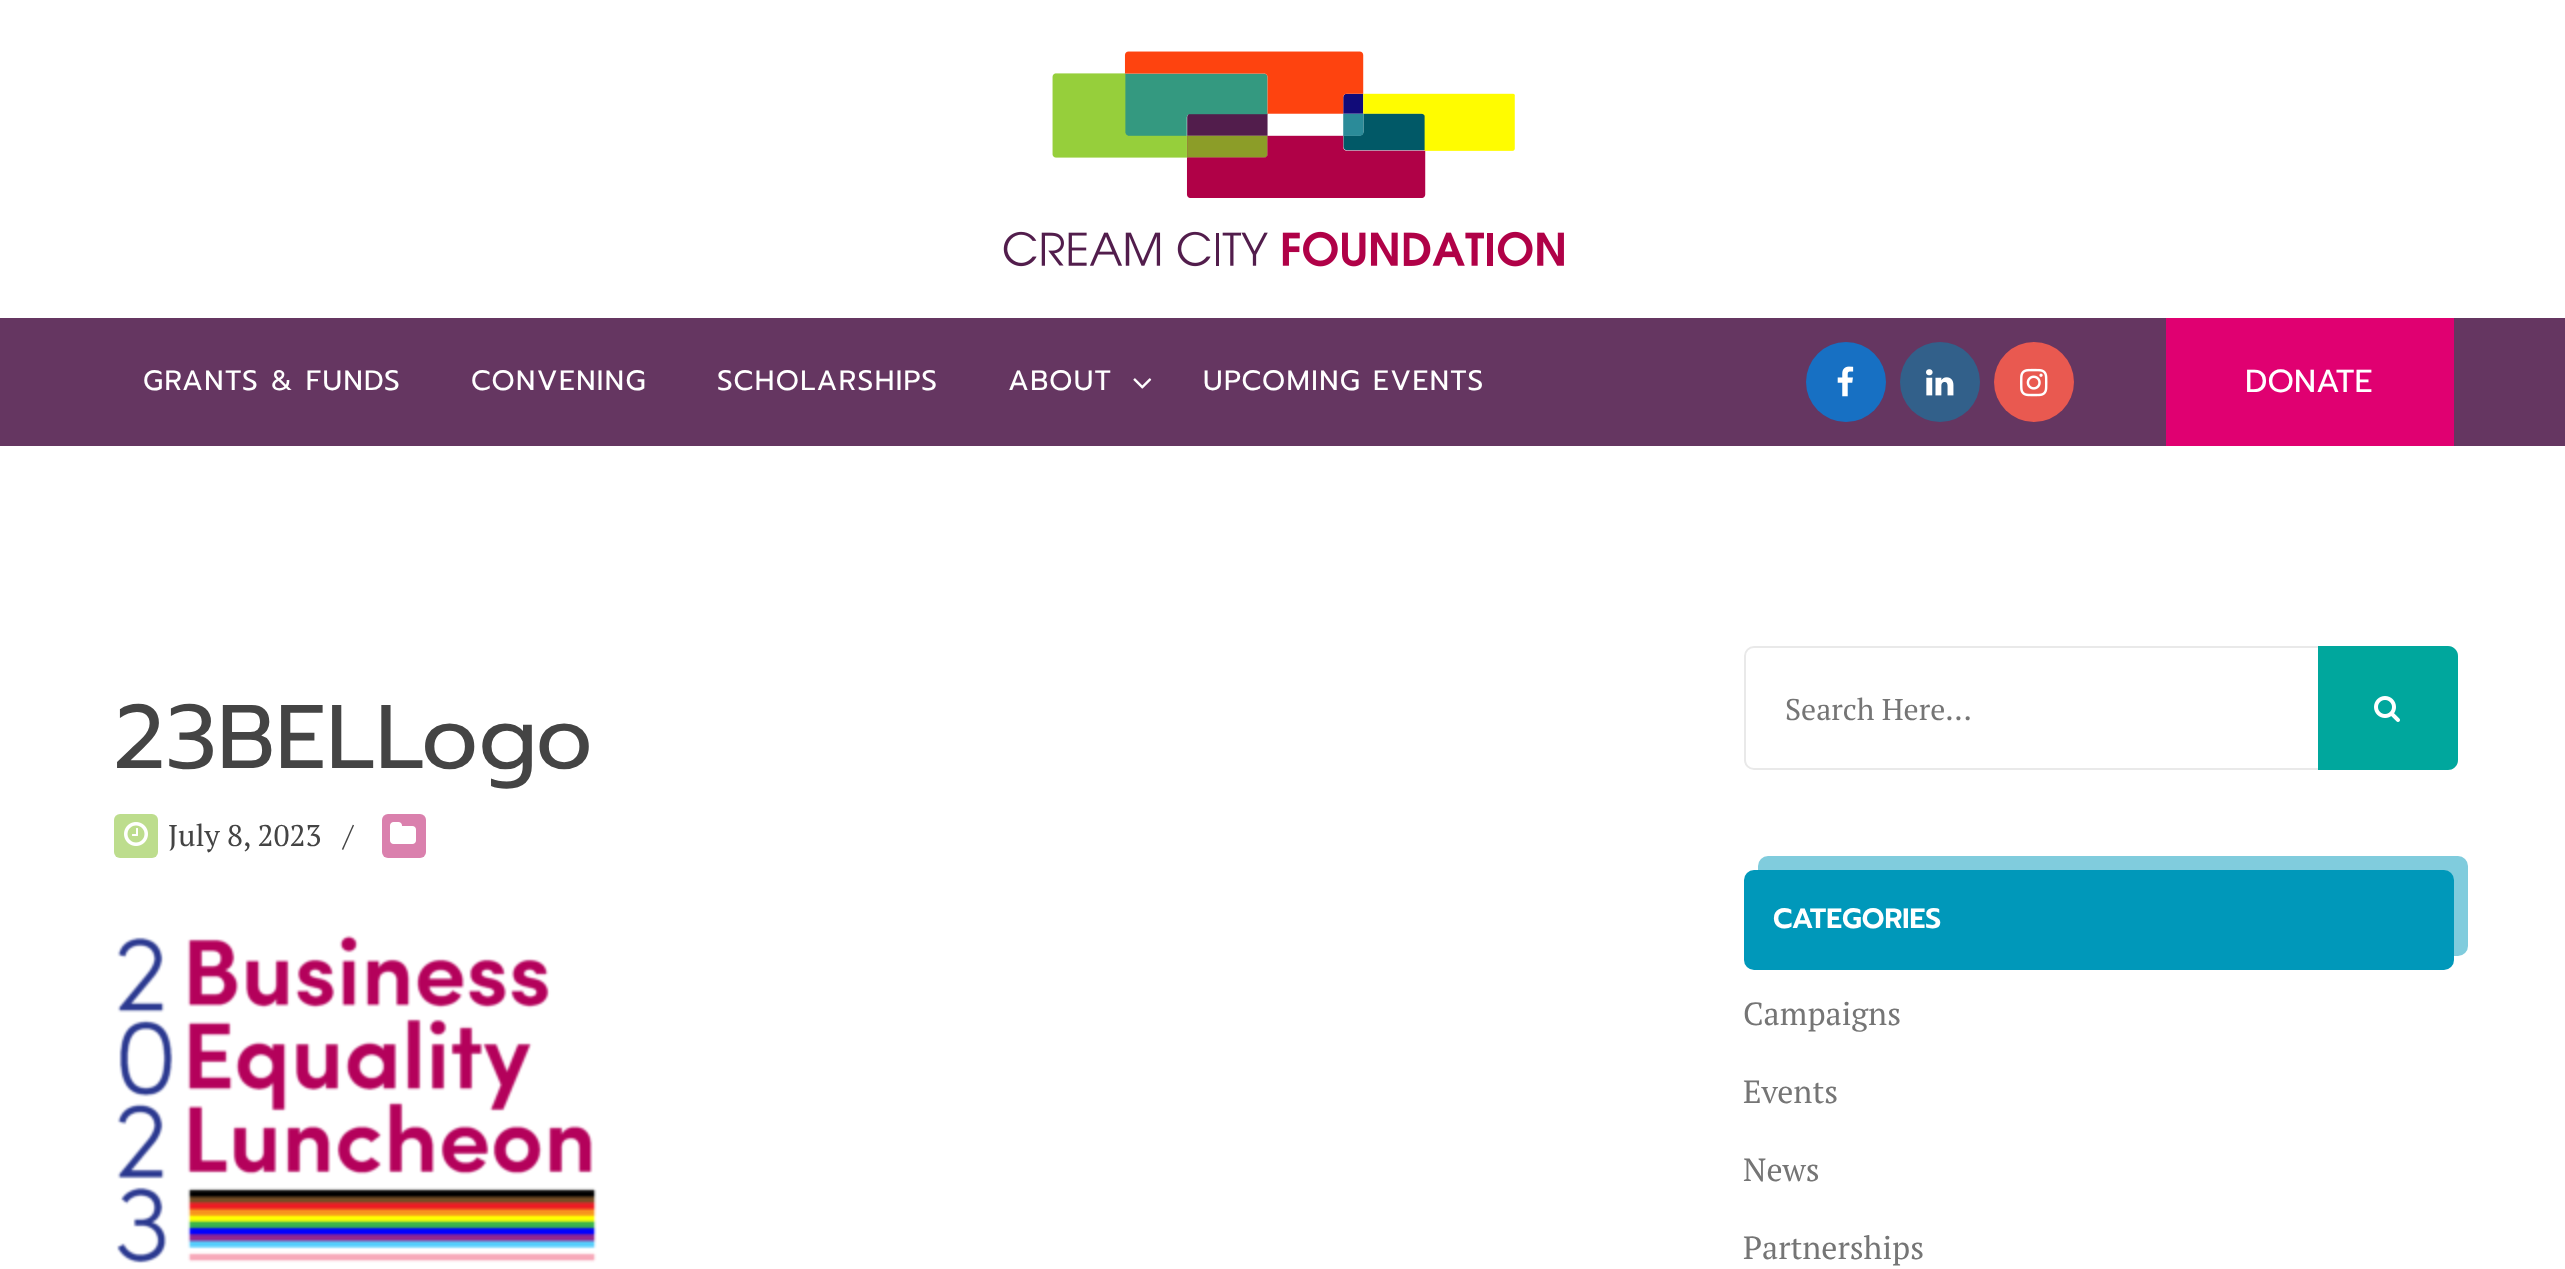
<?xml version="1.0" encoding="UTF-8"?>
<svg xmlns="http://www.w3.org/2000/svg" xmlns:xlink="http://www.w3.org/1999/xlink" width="2565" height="1269">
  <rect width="100%" height="100%" fill="#ffffff" />
  <image x="1003" y="51" width="561" height="216" xlink:href="image1.png" />
  <rect y="318" width="2565" height="128" fill="#653661" />
  <image x="1133" y="378" width="19" height="11" xlink:href="image2.png" />
  <circle cx="1846" cy="382" r="40" fill="#1770c3" />
  <image x="1837" y="366" width="17" height="31" xlink:href="image3.png" />
  <circle cx="1940" cy="382" r="40" fill="#32608a" />
  <image x="1926" y="369" width="28" height="27" xlink:href="image4.png" />
  <circle cx="2034" cy="382" r="40" fill="#e95950" />
  <image x="2020" y="368" width="28" height="29" xlink:href="image5.png" />
  <rect x="2166" y="318" width="288" height="128" fill="#e00071" />
  <rect x="114" y="814" width="44" height="44" rx="6" fill="#bddd8d" />
  <image x="124" y="822" width="24" height="24" xlink:href="image6.png" />
  <rect x="382" y="814" width="44" height="44" rx="6" fill="#da80ad" />
  <image x="390" y="822" width="26" height="22" xlink:href="image7.png" />
  <image x="116" y="935" width="481" height="329" xlink:href="image8.png" />
  <rect x="1745" y="647" width="712" height="122" rx="9" fill="none" stroke="#e9e9e9" stroke-width="2" />
  <path d="M 2318 646 h 130 c 5.5 0 10 4.5 10 10 v 104 c 0 5.5 -4.5 10 -10 10 h -130 z" fill="#00a79d" />
  <image x="2374" y="696" width="26" height="26" xlink:href="image9.png" />
  <rect x="1758" y="856" width="710" height="100" rx="10" fill="#80ccdd" />
  <rect x="1744" y="870" width="710" height="100" rx="10" fill="#0098ba" />
  <text x="143" y="390" style="font-family: Prompt; font-size: 28px; letter-spacing: 1.4px; fill: #ffffff">GRANTS &amp; FUNDS</text>
  <text x="471" y="390" style="font-family: Prompt; font-size: 28px; letter-spacing: 1.4px; fill: #ffffff">CONVENING</text>
  <text x="717" y="390" style="font-family: Prompt; font-size: 28px; letter-spacing: 1.4px; fill: #ffffff">SCHOLARSHIPS</text>
  <text x="1008" y="390" style="font-family: Prompt; font-size: 28px; letter-spacing: 1.4px; fill: #ffffff">ABOUT</text>
  <text x="1203" y="390" style="font-family: Prompt; font-size: 28px; letter-spacing: 1.4px; fill: #ffffff">UPCOMING EVENTS</text>
  <text x="2245" y="392" style="font-family: Prompt; font-size: 32px; fill: #ffffff">DONATE</text>
  <text x="113" y="768" style="font-family: Prompt; font-size: 90px; fill: #444444">23BELLogo</text>
  <text x="168" y="846" style="font-family: PT Serif; font-size: 30px; fill: #444444">July 8, 2023</text>
  <text x="343" y="846" style="font-family: PT Serif; font-size: 30px; fill: #444444">/</text>
  <text x="1785" y="720" style="font-family: PT Serif; font-size: 30px; fill: #757575">Search Here...</text>
  <text x="1773" y="928" style="font-family: Prompt; font-size: 28px; font-weight: 600; fill: #ffffff">CATEGORIES</text>
  <text x="1743" y="1025" style="font-family: PT Serif; font-size: 32px; fill: #757575">Campaigns</text>
  <text x="1743" y="1103" style="font-family: PT Serif; font-size: 32px; fill: #757575">Events</text>
  <text x="1743" y="1181" style="font-family: PT Serif; font-size: 32px; fill: #757575">News</text>
  <text x="1743" y="1259" style="font-family: PT Serif; font-size: 32px; fill: #757575">Partnerships</text>
</svg>
